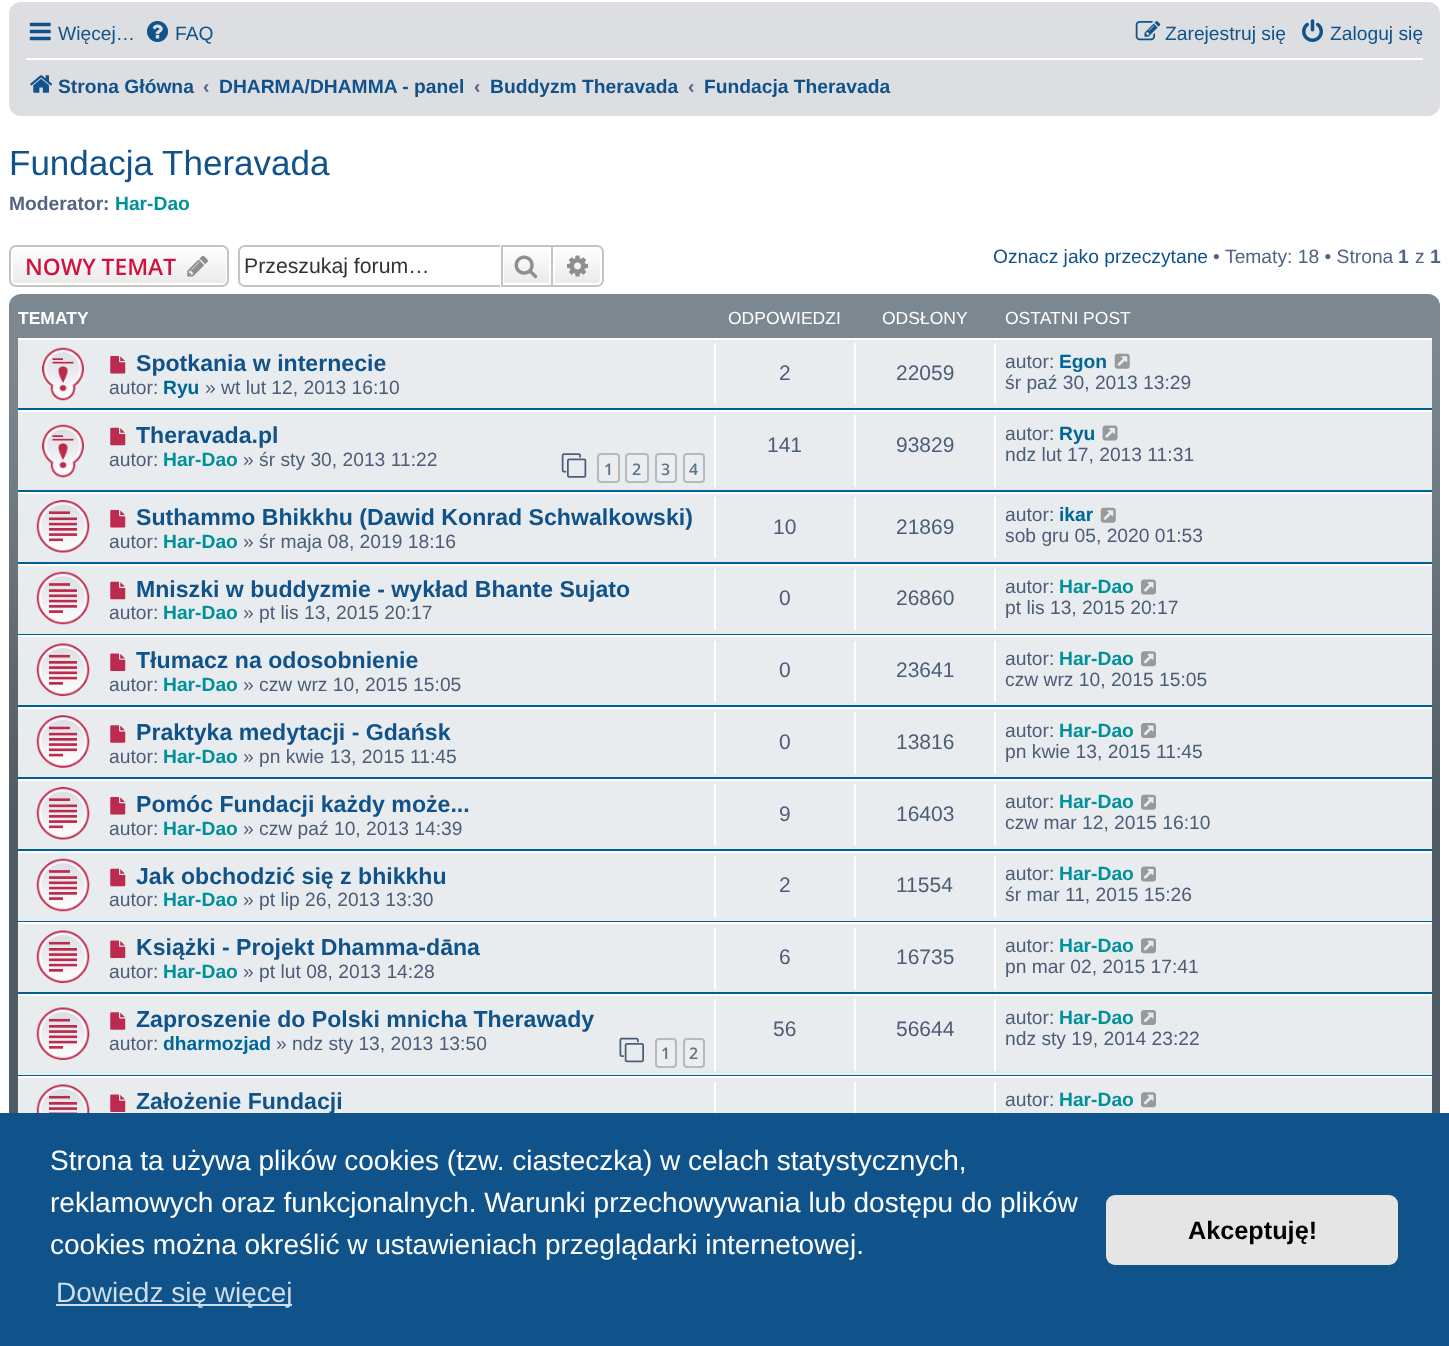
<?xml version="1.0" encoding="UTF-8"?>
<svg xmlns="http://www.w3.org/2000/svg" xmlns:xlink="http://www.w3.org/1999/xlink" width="1449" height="1346">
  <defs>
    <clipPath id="clip1"><rect x="9" y="245" width="220" height="42" rx="7" /></clipPath>
    <linearGradient id="g1" gradientUnits="userSpaceOnUse" x1="119" y1="247" x2="119" y2="285"><stop offset="0" stop-color="#ffffff" /><stop offset="1" stop-color="#e9e9e9" /></linearGradient>
    <linearGradient id="g2" gradientUnits="userSpaceOnUse" x1="527" y1="247" x2="527" y2="285"><stop offset="0" stop-color="#ffffff" /><stop offset="1" stop-color="#e9e9e9" /></linearGradient>
    <linearGradient id="g3" gradientUnits="userSpaceOnUse" x1="578" y1="247" x2="578" y2="285"><stop offset="0" stop-color="#ffffff" /><stop offset="1" stop-color="#e9e9e9" /></linearGradient>
    <linearGradient id="g4" gradientUnits="userSpaceOnUse" x1="724" y1="294" x2="725" y2="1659"><stop offset="0" stop-color="#7c8891" /><stop offset="0.04" stop-color="#7c8790" /><stop offset="0.1" stop-color="#76828b" /><stop offset="0.29" stop-color="#5b666f" /><stop offset="0.38" stop-color="#505c65" /><stop offset="1" stop-color="#505c65" /></linearGradient>
  </defs>
  <rect width="100%" height="100%" fill="#ffffff" />
  <rect x="9" y="2" width="1431" height="114" rx="12" fill="#dcdee2" />
  <image x="29" y="22" width="22" height="19" xlink:href="image1.png" />
  <image x="147" y="21" width="21" height="21" xlink:href="image2.png" />
  <image x="1135" y="21" width="26" height="20" xlink:href="image3.png" />
  <image x="1302" y="19" width="21" height="23" xlink:href="image4.png" />
  <rect x="26" y="58" width="1397" height="2" fill="#ffffff" />
  <image x="30" y="75" width="23" height="18" xlink:href="image5.png" />
  <g clip-path="url(#clip1)">
    <rect x="9" y="247" width="220" height="38" fill="url(#g1)" />
  </g>
  <rect x="12" y="248" width="215" height="36" rx="4" fill="none" stroke="#ffffff" stroke-width="2" />
  <rect x="10" y="246" width="218" height="40" rx="6" fill="none" stroke="#c7c3bf" stroke-width="2" />
  <image x="187" y="255" width="21" height="22" xlink:href="image6.png" />
  <path d="M 245 245 h 255 v 42 h -255 c -4 0 -7 -3 -7 -7 v -28 c 0 -4 3 -7 7 -7 z m 0 2 h 255 v 38 h -255 c -3 0 -5 -2 -5 -5 v -28 c 0 -3 2 -5 5 -5 z" fill="#c7c3bf" fill-rule="evenodd" />
  <rect x="504" y="251" width="45" height="32" fill="url(#g2)" />
  <rect x="502" y="246" width="50" height="40" fill="none" stroke="#c7c3bf" stroke-width="2" />
  <image x="514" y="255" width="24" height="24" xlink:href="image7.png" />
  <path d="M 554 248 h 43 c 2 0 4 2 4 4 v 28 c 0 2 -2 4 -4 4 h -43 z" fill="url(#g3)" stroke="#ffffff" stroke-width="2" />
  <path d="M 553 245 h 44 c 4 0 7 3 7 7 v 28 c 0 4 -3 7 -7 7 h -44 z m 0 2 h 44 c 3 0 5 2 5 5 v 28 c 0 3 -2 5 -5 5 h -44 z" fill="#c7c3bf" fill-rule="evenodd" />
  <image x="567" y="255" width="21" height="22" xlink:href="image8.png" />
  <rect x="9" y="294" width="1431" height="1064" rx="12" fill="url(#g4)" />
  <rect x="18" y="340" width="1414" height="68" fill="#e8ecee" />
  <rect x="18" y="338" width="1414" height="2" fill="#ffffff" />
  <rect x="18" y="408" width="1414" height="2" fill="#00608f" />
  <image x="42" y="347" width="42" height="54" xlink:href="image9.png" />
  <image x="110" y="356" width="16" height="18" xlink:href="image10.png" />
  <rect x="714" y="343" width="2" height="61" fill="#ffffff" />
  <rect x="854" y="343" width="2" height="61" fill="#ffffff" />
  <rect x="994" y="343" width="2" height="61" fill="#ffffff" />
  <image x="1114" y="353" width="16" height="16" xlink:href="image11.png" />
  <rect x="18" y="412" width="1414" height="78" fill="#e8ecee" />
  <rect x="18" y="410" width="1414" height="2" fill="#ffffff" />
  <rect x="18" y="490" width="1414" height="2" fill="#00608f" />
  <image x="42" y="424" width="42" height="54" xlink:href="image9.png" />
  <image x="110" y="427" width="16" height="19" xlink:href="image12.png" />
  <image x="561" y="453" width="26" height="25" xlink:href="image13.png" />
  <rect x="598" y="454" width="21" height="28" rx="3" fill="#ecedee" stroke="#b4bac0" stroke-width="2" />
  <rect x="626" y="454" width="22" height="28" rx="3" fill="#ecedee" stroke="#b4bac0" stroke-width="2" />
  <rect x="656" y="454" width="20" height="28" rx="3" fill="#ecedee" stroke="#b4bac0" stroke-width="2" />
  <rect x="684" y="454" width="20" height="28" rx="3" fill="#ecedee" stroke="#b4bac0" stroke-width="2" />
  <rect x="714" y="415" width="2" height="72" fill="#ffffff" />
  <rect x="854" y="415" width="2" height="72" fill="#ffffff" />
  <rect x="994" y="415" width="2" height="72" fill="#ffffff" />
  <image x="1102" y="425" width="16" height="16" xlink:href="image14.png" />
  <rect x="18" y="494" width="1414" height="68" fill="#e8ecee" />
  <rect x="18" y="492" width="1414" height="2" fill="#ffffff" />
  <rect x="18" y="562" width="1414" height="2" fill="#00608f" />
  <image x="36" y="500" width="54" height="53" xlink:href="image15.png" />
  <image x="110" y="510" width="16" height="18" xlink:href="image10.png" />
  <rect x="714" y="497" width="2" height="61" fill="#ffffff" />
  <rect x="854" y="497" width="2" height="61" fill="#ffffff" />
  <rect x="994" y="497" width="2" height="61" fill="#ffffff" />
  <image x="1100" y="507" width="16" height="16" xlink:href="image11.png" />
  <rect x="18" y="566" width="1414" height="68" fill="#e8ecee" />
  <rect x="18" y="564" width="1414" height="2" fill="#ffffff" />
  <rect x="18" y="634" width="1414" height="1" fill="#00608f" />
  <image x="36" y="571" width="54" height="54" xlink:href="image16.png" />
  <image x="110" y="581" width="16" height="19" xlink:href="image12.png" />
  <rect x="714" y="569" width="2" height="61" fill="#ffffff" />
  <rect x="854" y="569" width="2" height="61" fill="#ffffff" />
  <rect x="994" y="569" width="2" height="61" fill="#ffffff" />
  <image x="1141" y="579" width="15" height="16" xlink:href="image17.png" />
  <rect x="18" y="637" width="1414" height="68" fill="#e8ecee" />
  <rect x="18" y="635" width="1414" height="2" fill="#ffffff" />
  <rect x="18" y="705" width="1414" height="2" fill="#00608f" />
  <image x="36" y="643" width="54" height="53" xlink:href="image18.png" />
  <image x="110" y="653" width="16" height="18" xlink:href="image19.png" />
  <rect x="714" y="641" width="2" height="61" fill="#ffffff" />
  <rect x="854" y="641" width="2" height="61" fill="#ffffff" />
  <rect x="994" y="641" width="2" height="61" fill="#ffffff" />
  <image x="1141" y="651" width="15" height="16" xlink:href="image20.png" />
  <rect x="18" y="709" width="1414" height="68" fill="#e8ecee" />
  <rect x="18" y="707" width="1414" height="2" fill="#ffffff" />
  <rect x="18" y="777" width="1414" height="2" fill="#00608f" />
  <image x="36" y="715" width="54" height="53" xlink:href="image21.png" />
  <image x="110" y="725" width="16" height="18" xlink:href="image22.png" />
  <rect x="714" y="712" width="2" height="62" fill="#ffffff" />
  <rect x="854" y="712" width="2" height="62" fill="#ffffff" />
  <rect x="994" y="712" width="2" height="62" fill="#ffffff" />
  <image x="1141" y="723" width="15" height="15" xlink:href="image23.png" />
  <rect x="18" y="781" width="1414" height="68" fill="#e8ecee" />
  <rect x="18" y="779" width="1414" height="2" fill="#ffffff" />
  <rect x="18" y="849" width="1414" height="2" fill="#00608f" />
  <image x="36" y="787" width="54" height="53" xlink:href="image15.png" />
  <image x="110" y="797" width="16" height="18" xlink:href="image10.png" />
  <rect x="714" y="784" width="2" height="61" fill="#ffffff" />
  <rect x="854" y="784" width="2" height="61" fill="#ffffff" />
  <rect x="994" y="784" width="2" height="61" fill="#ffffff" />
  <image x="1141" y="794" width="15" height="16" xlink:href="image24.png" />
  <rect x="18" y="853" width="1414" height="68" fill="#e8ecee" />
  <rect x="18" y="851" width="1414" height="2" fill="#ffffff" />
  <rect x="18" y="921" width="1414" height="1" fill="#00608f" />
  <image x="36" y="858" width="54" height="54" xlink:href="image16.png" />
  <image x="110" y="868" width="16" height="19" xlink:href="image12.png" />
  <rect x="714" y="856" width="2" height="61" fill="#ffffff" />
  <rect x="854" y="856" width="2" height="61" fill="#ffffff" />
  <rect x="994" y="856" width="2" height="61" fill="#ffffff" />
  <image x="1141" y="866" width="15" height="16" xlink:href="image17.png" />
  <rect x="18" y="924" width="1414" height="68" fill="#e8ecee" />
  <rect x="18" y="922" width="1414" height="2" fill="#ffffff" />
  <rect x="18" y="992" width="1414" height="2" fill="#00608f" />
  <image x="36" y="930" width="54" height="53" xlink:href="image18.png" />
  <image x="110" y="940" width="16" height="18" xlink:href="image19.png" />
  <rect x="714" y="928" width="2" height="61" fill="#ffffff" />
  <rect x="854" y="928" width="2" height="61" fill="#ffffff" />
  <rect x="994" y="928" width="2" height="61" fill="#ffffff" />
  <image x="1141" y="938" width="15" height="16" xlink:href="image25.png" />
  <rect x="18" y="996" width="1414" height="79" fill="#e8ecee" />
  <rect x="18" y="994" width="1414" height="2" fill="#ffffff" />
  <rect x="18" y="1075" width="1414" height="1" fill="#00608f" />
  <image x="36" y="1007" width="54" height="53" xlink:href="image18.png" />
  <image x="110" y="1012" width="16" height="18" xlink:href="image22.png" />
  <image x="619" y="1037" width="25" height="26" xlink:href="image26.png" />
  <rect x="656" y="1039" width="20" height="28" rx="3" fill="#ecedee" stroke="#b4bac0" stroke-width="2" />
  <rect x="684" y="1039" width="20" height="28" rx="3" fill="#ecedee" stroke="#b4bac0" stroke-width="2" />
  <rect x="714" y="999" width="2" height="72" fill="#ffffff" />
  <rect x="854" y="999" width="2" height="72" fill="#ffffff" />
  <rect x="994" y="999" width="2" height="72" fill="#ffffff" />
  <image x="1141" y="1010" width="15" height="15" xlink:href="image27.png" />
  <rect x="18" y="1078" width="1414" height="35" fill="#e8ecee" />
  <rect x="18" y="1076" width="1414" height="2" fill="#ffffff" />
  <image x="36" y="1084" width="54" height="29" xlink:href="image28.png" />
  <image x="110" y="1094" width="16" height="18" xlink:href="image19.png" />
  <rect x="714" y="1082" width="2" height="31" fill="#ffffff" />
  <rect x="854" y="1082" width="2" height="31" fill="#ffffff" />
  <rect x="994" y="1082" width="2" height="31" fill="#ffffff" />
  <image x="1141" y="1092" width="15" height="16" xlink:href="image20.png" />
  <text x="58" y="40" style="font-family: Liberation Sans; font-size: 19.25px; fill: #105289">Więcej…</text>
  <text x="175" y="40" style="font-family: Liberation Sans; font-size: 19.25px; fill: #105289">FAQ</text>
  <text x="1165" y="40" style="font-family: Liberation Sans; font-size: 19.25px; fill: #105289">Zarejestruj się</text>
  <text x="1330" y="40" style="font-family: Liberation Sans; font-size: 19.25px; fill: #105289">Zaloguj się</text>
  <text x="58" y="93" style="font-family: Liberation Sans; font-size: 19.25px; font-weight: bold; fill: #105289">Strona Główna</text>
  <text x="203" y="93" style="font-family: Liberation Sans; font-size: 19.25px; font-weight: bold; fill: #536482">‹</text>
  <text x="219" y="93" style="font-family: Liberation Sans; font-size: 19.25px; font-weight: bold; fill: #105289">DHARMA/DHAMMA - panel</text>
  <text x="474" y="93" style="font-family: Liberation Sans; font-size: 19.25px; font-weight: bold; fill: #536482">‹</text>
  <text x="490" y="93" style="font-family: Liberation Sans; font-size: 19.25px; font-weight: bold; fill: #105289">Buddyzm Theravada</text>
  <text x="688" y="93" style="font-family: Liberation Sans; font-size: 19.25px; font-weight: bold; fill: #536482">‹</text>
  <text x="704" y="93" style="font-family: Liberation Sans; font-size: 19.25px; font-weight: bold; fill: #105289">Fundacja Theravada</text>
  <text x="9" y="175" style="font-family: Liberation Sans; font-size: 35px; fill: #105289">Fundacja Theravada</text>
  <text x="9" y="210" style="font-family: Liberation Sans; font-size: 19.25px; font-weight: bold; fill: #536482">Moderator:</text>
  <text x="115" y="210" style="font-family: Liberation Sans; font-size: 19.25px; font-weight: bold; fill: #009099">Har-Dao</text>
  <text x="25" y="275" style="font-family: Open Sans; font-size: 22.75px; font-weight: 600; fill: #d31141">NOWY TEMAT</text>
  <text x="244" y="273" style="font-family: Liberation Sans; font-size: 21.25px; fill: #333333">Przeszukaj forum…</text>
  <text x="993" y="263" style="font-family: Liberation Sans; font-size: 19.25px; fill: #105289">Oznacz jako przeczytane</text>
  <text x="1213" y="263" style="font-family: Liberation Sans; font-size: 19.25px; fill: #536482">•</text>
  <text x="1225" y="263" style="font-family: Liberation Sans; font-size: 19.25px; fill: #536482">Tematy: 18 • Strona</text>
  <text x="1398" y="263" style="font-family: Liberation Sans; font-size: 19.25px; font-weight: bold; fill: #536482">1</text>
  <text x="1415" y="263" style="font-family: Liberation Sans; font-size: 19.25px; fill: #536482">z</text>
  <text x="1430" y="263" style="font-family: Liberation Sans; font-size: 19.25px; font-weight: bold; fill: #536482">1</text>
  <text x="18" y="324" style="font-family: Liberation Sans; font-size: 17.5px; font-weight: bold; fill: #ffffff">TEMATY</text>
  <text x="728" y="324" style="font-family: Liberation Sans; font-size: 17.5px; fill: #ffffff">ODPOWIEDZI</text>
  <text x="882" y="324" style="font-family: Liberation Sans; font-size: 17.5px; fill: #ffffff">ODSŁONY</text>
  <text x="1005" y="324" style="font-family: Liberation Sans; font-size: 17.5px; fill: #ffffff">OSTATNI POST</text>
  <text x="136" y="371" style="font-family: Liberation Sans; font-size: 23.1px; font-weight: bold; fill: #105289">Spotkania w internecie</text>
  <text x="109" y="394" style="font-family: Liberation Sans; font-size: 19.25px; fill: #4c5d77">autor:</text>
  <text x="163" y="394" style="font-family: Liberation Sans; font-size: 19.25px; font-weight: bold; fill: #006597">Ryu</text>
  <text x="205" y="394" style="font-family: Liberation Sans; font-size: 19.25px; fill: #4c5d77">» wt lut 12, 2013 16:10</text>
  <text x="779" y="380" style="font-family: Liberation Sans; font-size: 21px; fill: #4c5d77">2</text>
  <text x="896" y="380" style="font-family: Liberation Sans; font-size: 21px; fill: #4c5d77">22059</text>
  <text x="1005" y="368" style="font-family: Liberation Sans; font-size: 19.25px; fill: #4c5d77">autor:</text>
  <text x="1059" y="368" style="font-family: Liberation Sans; font-size: 19.25px; font-weight: bold; fill: #006597">Egon</text>
  <text x="1005" y="389" style="font-family: Liberation Sans; font-size: 19.25px; fill: #4c5d77">śr paź 30, 2013 13:29</text>
  <text x="136" y="443" style="font-family: Liberation Sans; font-size: 23.1px; font-weight: bold; fill: #105289">Theravada.pl</text>
  <text x="109" y="466" style="font-family: Liberation Sans; font-size: 19.25px; fill: #4c5d77">autor:</text>
  <text x="163" y="466" style="font-family: Liberation Sans; font-size: 19.25px; font-weight: bold; fill: #009099">Har-Dao</text>
  <text x="243" y="466" style="font-family: Liberation Sans; font-size: 19.25px; fill: #4c5d77">» śr sty 30, 2013 11:22</text>
  <text x="604" y="475" style="font-family: Open Sans; font-size: 16px; font-weight: 600; fill: #5c758c">1</text>
  <text x="632" y="475" style="font-family: Open Sans; font-size: 16px; font-weight: 600; fill: #5c758c">2</text>
  <text x="661" y="475" style="font-family: Open Sans; font-size: 16px; font-weight: 600; fill: #5c758c">3</text>
  <text x="689" y="475" style="font-family: Open Sans; font-size: 16px; font-weight: 600; fill: #5c758c">4</text>
  <text x="767" y="452" style="font-family: Liberation Sans; font-size: 21px; fill: #4c5d77">141</text>
  <text x="896" y="452" style="font-family: Liberation Sans; font-size: 21px; fill: #4c5d77">93829</text>
  <text x="1005" y="440" style="font-family: Liberation Sans; font-size: 19.25px; fill: #4c5d77">autor:</text>
  <text x="1059" y="440" style="font-family: Liberation Sans; font-size: 19.25px; font-weight: bold; fill: #006597">Ryu</text>
  <text x="1005" y="461" style="font-family: Liberation Sans; font-size: 19.25px; fill: #4c5d77">ndz lut 17, 2013 11:31</text>
  <text x="136" y="525" style="font-family: Liberation Sans; font-size: 23.1px; font-weight: bold; fill: #105289">Suthammo Bhikkhu (Dawid Konrad Schwalkowski)</text>
  <text x="109" y="548" style="font-family: Liberation Sans; font-size: 19.25px; fill: #4c5d77">autor:</text>
  <text x="163" y="548" style="font-family: Liberation Sans; font-size: 19.25px; font-weight: bold; fill: #009099">Har-Dao</text>
  <text x="243" y="548" style="font-family: Liberation Sans; font-size: 19.25px; fill: #4c5d77">» śr maja 08, 2019 18:16</text>
  <text x="773" y="534" style="font-family: Liberation Sans; font-size: 21px; fill: #4c5d77">10</text>
  <text x="896" y="534" style="font-family: Liberation Sans; font-size: 21px; fill: #4c5d77">21869</text>
  <text x="1005" y="521" style="font-family: Liberation Sans; font-size: 19.25px; fill: #4c5d77">autor:</text>
  <text x="1059" y="521" style="font-family: Liberation Sans; font-size: 19.25px; font-weight: bold; fill: #006597">ikar</text>
  <text x="1005" y="542" style="font-family: Liberation Sans; font-size: 19.25px; fill: #4c5d77">sob gru 05, 2020 01:53</text>
  <text x="136" y="597" style="font-family: Liberation Sans; font-size: 23.1px; font-weight: bold; fill: #105289">Mniszki w buddyzmie - wykład Bhante Sujato</text>
  <text x="109" y="619" style="font-family: Liberation Sans; font-size: 19.25px; fill: #4c5d77">autor:</text>
  <text x="163" y="619" style="font-family: Liberation Sans; font-size: 19.25px; font-weight: bold; fill: #009099">Har-Dao</text>
  <text x="243" y="619" style="font-family: Liberation Sans; font-size: 19.25px; fill: #4c5d77">» pt lis 13, 2015 20:17</text>
  <text x="779" y="605" style="font-family: Liberation Sans; font-size: 21px; fill: #4c5d77">0</text>
  <text x="896" y="605" style="font-family: Liberation Sans; font-size: 21px; fill: #4c5d77">26860</text>
  <text x="1005" y="593" style="font-family: Liberation Sans; font-size: 19.25px; fill: #4c5d77">autor:</text>
  <text x="1059" y="593" style="font-family: Liberation Sans; font-size: 19.25px; font-weight: bold; fill: #009099">Har-Dao</text>
  <text x="1005" y="614" style="font-family: Liberation Sans; font-size: 19.25px; fill: #4c5d77">pt lis 13, 2015 20:17</text>
  <text x="136" y="668" style="font-family: Liberation Sans; font-size: 23.1px; font-weight: bold; fill: #105289">Tłumacz na odosobnienie</text>
  <text x="109" y="691" style="font-family: Liberation Sans; font-size: 19.25px; fill: #4c5d77">autor:</text>
  <text x="163" y="691" style="font-family: Liberation Sans; font-size: 19.25px; font-weight: bold; fill: #009099">Har-Dao</text>
  <text x="243" y="691" style="font-family: Liberation Sans; font-size: 19.25px; fill: #4c5d77">» czw wrz 10, 2015 15:05</text>
  <text x="779" y="677" style="font-family: Liberation Sans; font-size: 21px; fill: #4c5d77">0</text>
  <text x="896" y="677" style="font-family: Liberation Sans; font-size: 21px; fill: #4c5d77">23641</text>
  <text x="1005" y="665" style="font-family: Liberation Sans; font-size: 19.25px; fill: #4c5d77">autor:</text>
  <text x="1059" y="665" style="font-family: Liberation Sans; font-size: 19.25px; font-weight: bold; fill: #009099">Har-Dao</text>
  <text x="1005" y="686" style="font-family: Liberation Sans; font-size: 19.25px; fill: #4c5d77">czw wrz 10, 2015 15:05</text>
  <text x="136" y="740" style="font-family: Liberation Sans; font-size: 23.1px; font-weight: bold; fill: #105289">Praktyka medytacji - Gdańsk</text>
  <text x="109" y="763" style="font-family: Liberation Sans; font-size: 19.25px; fill: #4c5d77">autor:</text>
  <text x="163" y="763" style="font-family: Liberation Sans; font-size: 19.25px; font-weight: bold; fill: #009099">Har-Dao</text>
  <text x="243" y="763" style="font-family: Liberation Sans; font-size: 19.25px; fill: #4c5d77">» pn kwie 13, 2015 11:45</text>
  <text x="779" y="749" style="font-family: Liberation Sans; font-size: 21px; fill: #4c5d77">0</text>
  <text x="896" y="749" style="font-family: Liberation Sans; font-size: 21px; fill: #4c5d77">13816</text>
  <text x="1005" y="737" style="font-family: Liberation Sans; font-size: 19.25px; fill: #4c5d77">autor:</text>
  <text x="1059" y="737" style="font-family: Liberation Sans; font-size: 19.25px; font-weight: bold; fill: #009099">Har-Dao</text>
  <text x="1005" y="758" style="font-family: Liberation Sans; font-size: 19.25px; fill: #4c5d77">pn kwie 13, 2015 11:45</text>
  <text x="136" y="812" style="font-family: Liberation Sans; font-size: 23.1px; font-weight: bold; fill: #105289">Pomóc Fundacji każdy może...</text>
  <text x="109" y="835" style="font-family: Liberation Sans; font-size: 19.25px; fill: #4c5d77">autor:</text>
  <text x="163" y="835" style="font-family: Liberation Sans; font-size: 19.25px; font-weight: bold; fill: #009099">Har-Dao</text>
  <text x="243" y="835" style="font-family: Liberation Sans; font-size: 19.25px; fill: #4c5d77">» czw paź 10, 2013 14:39</text>
  <text x="779" y="821" style="font-family: Liberation Sans; font-size: 21px; fill: #4c5d77">9</text>
  <text x="896" y="821" style="font-family: Liberation Sans; font-size: 21px; fill: #4c5d77">16403</text>
  <text x="1005" y="808" style="font-family: Liberation Sans; font-size: 19.25px; fill: #4c5d77">autor:</text>
  <text x="1059" y="808" style="font-family: Liberation Sans; font-size: 19.25px; font-weight: bold; fill: #009099">Har-Dao</text>
  <text x="1005" y="829" style="font-family: Liberation Sans; font-size: 19.25px; fill: #4c5d77">czw mar 12, 2015 16:10</text>
  <text x="136" y="884" style="font-family: Liberation Sans; font-size: 23.1px; font-weight: bold; fill: #105289">Jak obchodzić się z bhikkhu</text>
  <text x="109" y="906" style="font-family: Liberation Sans; font-size: 19.25px; fill: #4c5d77">autor:</text>
  <text x="163" y="906" style="font-family: Liberation Sans; font-size: 19.25px; font-weight: bold; fill: #009099">Har-Dao</text>
  <text x="243" y="906" style="font-family: Liberation Sans; font-size: 19.25px; fill: #4c5d77">» pt lip 26, 2013 13:30</text>
  <text x="779" y="892" style="font-family: Liberation Sans; font-size: 21px; fill: #4c5d77">2</text>
  <text x="896" y="892" style="font-family: Liberation Sans; font-size: 21px; fill: #4c5d77">11554</text>
  <text x="1005" y="880" style="font-family: Liberation Sans; font-size: 19.25px; fill: #4c5d77">autor:</text>
  <text x="1059" y="880" style="font-family: Liberation Sans; font-size: 19.25px; font-weight: bold; fill: #009099">Har-Dao</text>
  <text x="1005" y="901" style="font-family: Liberation Sans; font-size: 19.25px; fill: #4c5d77">śr mar 11, 2015 15:26</text>
  <text x="136" y="955" style="font-family: Liberation Sans; font-size: 23.1px; font-weight: bold; fill: #105289">Książki - Projekt Dhamma-dāna</text>
  <text x="109" y="978" style="font-family: Liberation Sans; font-size: 19.25px; fill: #4c5d77">autor:</text>
  <text x="163" y="978" style="font-family: Liberation Sans; font-size: 19.25px; font-weight: bold; fill: #009099">Har-Dao</text>
  <text x="243" y="978" style="font-family: Liberation Sans; font-size: 19.25px; fill: #4c5d77">» pt lut 08, 2013 14:28</text>
  <text x="779" y="964" style="font-family: Liberation Sans; font-size: 21px; fill: #4c5d77">6</text>
  <text x="896" y="964" style="font-family: Liberation Sans; font-size: 21px; fill: #4c5d77">16735</text>
  <text x="1005" y="952" style="font-family: Liberation Sans; font-size: 19.25px; fill: #4c5d77">autor:</text>
  <text x="1059" y="952" style="font-family: Liberation Sans; font-size: 19.25px; font-weight: bold; fill: #009099">Har-Dao</text>
  <text x="1005" y="973" style="font-family: Liberation Sans; font-size: 19.25px; fill: #4c5d77">pn mar 02, 2015 17:41</text>
  <text x="136" y="1027" style="font-family: Liberation Sans; font-size: 23.1px; font-weight: bold; fill: #105289">Zaproszenie do Polski mnicha Therawady</text>
  <text x="109" y="1050" style="font-family: Liberation Sans; font-size: 19.25px; fill: #4c5d77">autor:</text>
  <text x="163" y="1050" style="font-family: Liberation Sans; font-size: 19.25px; font-weight: bold; fill: #006597">dharmozjad</text>
  <text x="276" y="1050" style="font-family: Liberation Sans; font-size: 19.25px; fill: #4c5d77">» ndz sty 13, 2013 13:50</text>
  <text x="661" y="1059" style="font-family: Open Sans; font-size: 16px; font-weight: 600; fill: #5c758c">1</text>
  <text x="689" y="1059" style="font-family: Open Sans; font-size: 16px; font-weight: 600; fill: #5c758c">2</text>
  <text x="773" y="1036" style="font-family: Liberation Sans; font-size: 21px; fill: #4c5d77">56</text>
  <text x="896" y="1036" style="font-family: Liberation Sans; font-size: 21px; fill: #4c5d77">56644</text>
  <text x="1005" y="1024" style="font-family: Liberation Sans; font-size: 19.25px; fill: #4c5d77">autor:</text>
  <text x="1059" y="1024" style="font-family: Liberation Sans; font-size: 19.25px; font-weight: bold; fill: #009099">Har-Dao</text>
  <text x="1005" y="1045" style="font-family: Liberation Sans; font-size: 19.25px; fill: #4c5d77">ndz sty 19, 2014 23:22</text>
  <text x="136" y="1109" style="font-family: Liberation Sans; font-size: 23.1px; font-weight: bold; fill: #105289">Założenie Fundacji</text>
  <text x="1005" y="1106" style="font-family: Liberation Sans; font-size: 19.25px; fill: #4c5d77">autor:</text>
  <text x="1059" y="1106" style="font-family: Liberation Sans; font-size: 19.25px; font-weight: bold; fill: #009099">Har-Dao</text>
  <rect y="1113" width="1449" height="233" fill="#0f538a" />
  <text x="50" y="1170" style="font-family: Liberation Sans; font-size: 28px; fill: #ffffff">Strona ta używa plików cookies (tzw. ciasteczka) w celach statystycznych,</text>
  <text x="50" y="1212" style="font-family: Liberation Sans; font-size: 28px; fill: #ffffff">reklamowych oraz funkcjonalnych. Warunki przechowywania lub dostępu do plików</text>
  <text x="50" y="1254" style="font-family: Liberation Sans; font-size: 28px; fill: #ffffff">cookies można określić w ustawieniach przeglądarki internetowej.</text>
  <rect x="56" y="1304" width="236" height="2" fill="#cfdde8" />
  <text x="56" y="1302" style="font-family: Liberation Sans; font-size: 28px; fill: #cfdde8">Dowiedz się więcej</text>
  <rect x="1106" y="1195" width="292" height="70" rx="9" fill="#e5e5e5" />
  <text x="1188" y="1239" style="font-family: Liberation Sans; font-size: 25.25px; font-weight: bold; fill: #000000">Akceptuję!</text>
</svg>
